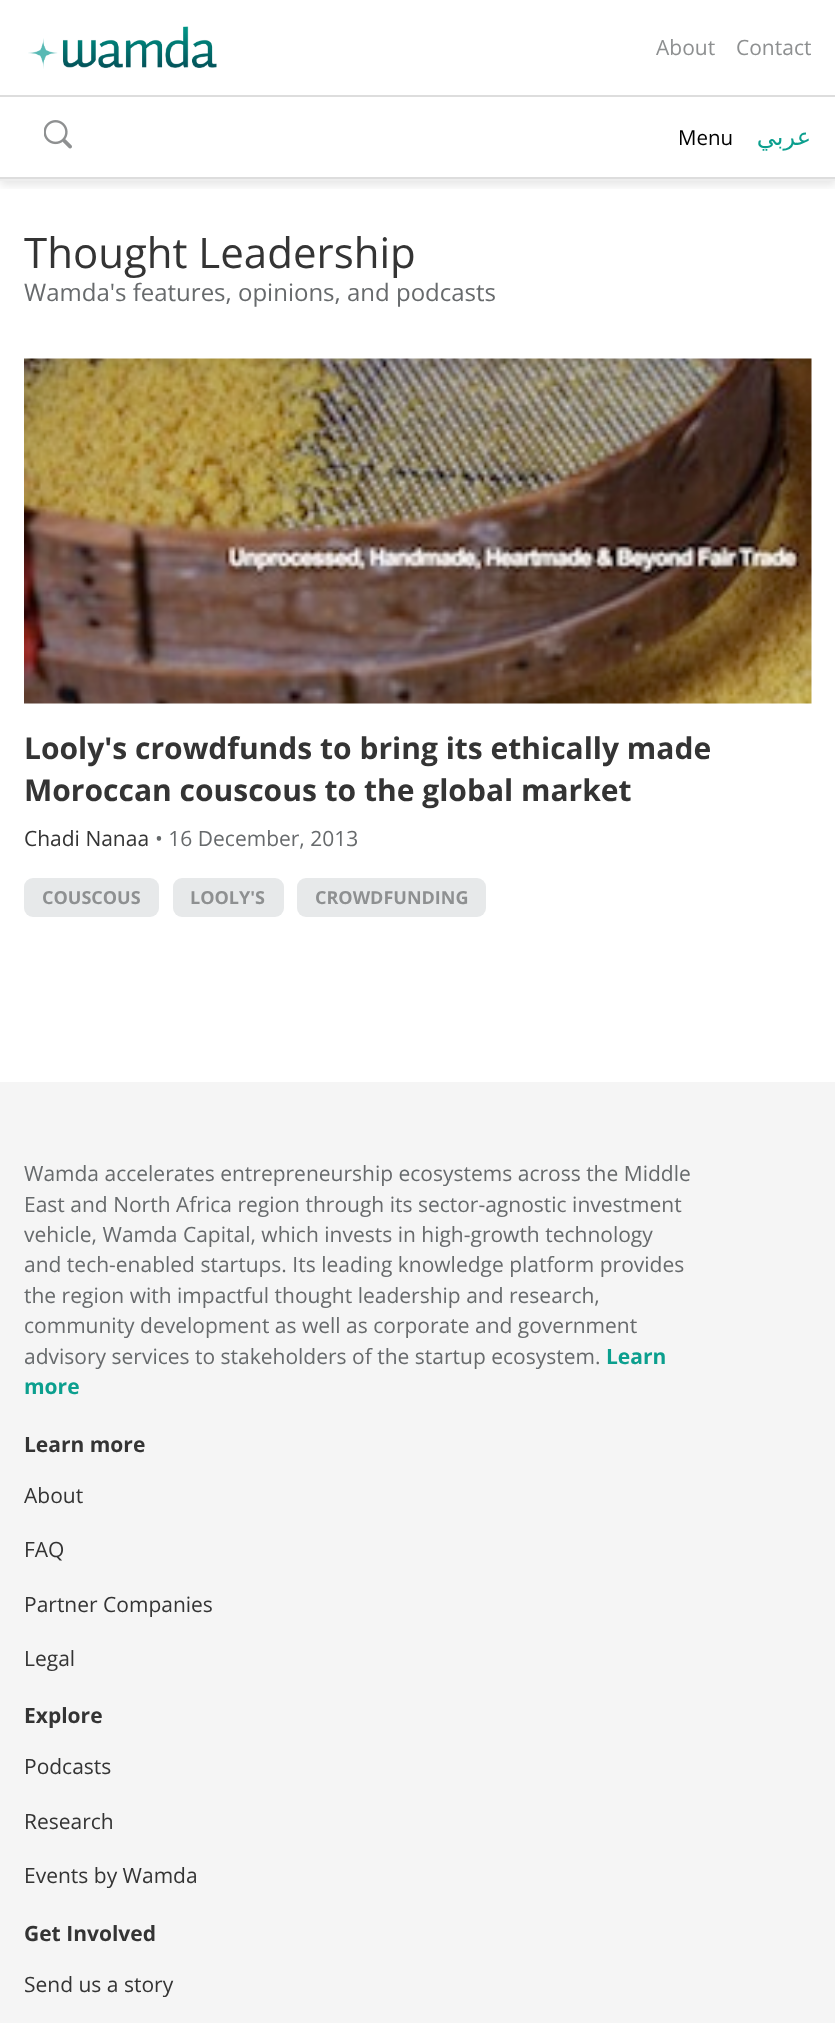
<?xml version="1.0" encoding="UTF-8"?>
<svg xmlns="http://www.w3.org/2000/svg" xmlns:xlink="http://www.w3.org/1999/xlink" width="835" height="2023">
  <defs>
    <clipPath id="clip1"><rect x="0" y="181" width="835" height="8" /></clipPath>
  </defs>
  <rect width="100%" height="100%" fill="#ffffff" />
  <g clip-path="url(#clip1)">
    <rect y="5" width="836" height="180" fill="#000000" fill-opacity="0.1" filter="blur(5px)" />
  </g>
  <rect y="179" width="835" height="2" fill="#eeeeee" />
  <image x="28" y="26" width="189" height="43" xlink:href="image1.png" />
  <rect y="95" width="835" height="2" fill="#dddddd" />
  <rect y="177" width="835" height="2" fill="#dddddd" />
  <image x="44" y="120" width="28" height="29" xlink:href="image2.png" />
  <image x="24" y="358" width="788" height="346" xlink:href="image3.png" />
  <rect x="24" y="878" width="135" height="39" rx="9" fill="#e7e9ea" />
  <rect x="173" y="878" width="111" height="39" rx="9" fill="#e7e9ea" />
  <rect x="297" y="878" width="189" height="39" rx="9" fill="#e7e9ea" />
  <rect y="1082" width="835" height="941" fill="#f5f5f5" />
  <text x="656" y="55" style="font-family: Open Sans; font-size: 21px; fill: #8e9091">About</text>
  <text x="736" y="55" style="font-family: Open Sans; font-size: 21px; fill: #8e9091">Contact</text>
  <text x="678" y="145" style="font-family: Open Sans; font-size: 20.5px; fill: #000000">Menu</text>
  <text x="811" y="145" style="font-family: DejaVu Sans; font-size: 24px; direction: rtl; fill: #0b9f8e">عربي</text>
  <text x="24" y="268" style="font-family: Open Sans; font-size: 42px; fill: #343434">Thought Leadership</text>
  <text x="24" y="301" style="font-family: Open Sans; font-size: 24px; fill: #676a6c">Wamda's features, opinions, and podcasts</text>
  <text x="24" y="759" style="font-family: Open Sans; font-size: 30px; font-weight: bold; fill: #343434">Looly's crowdfunds to bring its ethically made</text>
  <text x="24" y="801" style="font-family: Open Sans; font-size: 30px; font-weight: bold; fill: #343434">Moroccan couscous to the global market</text>
  <text x="24" y="846" style="font-family: Open Sans; font-size: 21px; fill: #343434">Chadi Nanaa</text>
  <text x="155" y="846" style="font-family: Open Sans; font-size: 21px; fill: #676a6c">• 16 December, 2013</text>
  <text x="42" y="904" style="font-family: Open Sans; font-size: 18px; font-weight: bold; fill: #8e9091">COUSCOUS</text>
  <text x="190" y="904" style="font-family: Open Sans; font-size: 18px; font-weight: bold; fill: #8e9091">LOOLY'S</text>
  <text x="315" y="904" style="font-family: Open Sans; font-size: 18px; font-weight: bold; fill: #8e9091">CROWDFUNDING</text>
  <text x="24" y="1181" style="font-family: Open Sans; font-size: 21px; fill: #676a6c">Wamda accelerates entrepreneurship ecosystems across the Middle</text>
  <text x="24" y="1212" style="font-family: Open Sans; font-size: 21px; fill: #676a6c">East and North Africa region through its sector-agnostic investment</text>
  <text x="24" y="1242" style="font-family: Open Sans; font-size: 21px; fill: #676a6c">vehicle, Wamda Capital, which invests in high-growth technology</text>
  <text x="24" y="1272" style="font-family: Open Sans; font-size: 21px; fill: #676a6c">and tech-enabled startups. Its leading knowledge platform provides</text>
  <text x="24" y="1303" style="font-family: Open Sans; font-size: 21px; fill: #676a6c">the region with impactful thought leadership and research,</text>
  <text x="24" y="1333" style="font-family: Open Sans; font-size: 21px; fill: #676a6c">community development as well as corporate and government</text>
  <text x="24" y="1364" style="font-family: Open Sans; font-size: 21px; fill: #676a6c">advisory services to stakeholders of the startup ecosystem.</text>
  <text x="606" y="1364" style="font-family: Open Sans; font-size: 21px; font-weight: bold; fill: #0b9f8e">Learn</text>
  <text x="24" y="1394" style="font-family: Open Sans; font-size: 21px; font-weight: bold; fill: #0b9f8e">more</text>
  <text x="24" y="1452" style="font-family: Open Sans; font-size: 21px; font-weight: bold; fill: #343434">Learn more</text>
  <text x="24" y="1503" style="font-family: Open Sans; font-size: 21px; fill: #343434">About</text>
  <text x="24" y="1557" style="font-family: Open Sans; font-size: 21px; fill: #343434">FAQ</text>
  <text x="24" y="1612" style="font-family: Open Sans; font-size: 21px; fill: #343434">Partner Companies</text>
  <text x="24" y="1666" style="font-family: Open Sans; font-size: 21px; fill: #343434">Legal</text>
  <text x="24" y="1723" style="font-family: Open Sans; font-size: 21px; font-weight: bold; fill: #343434">Explore</text>
  <text x="24" y="1774" style="font-family: Open Sans; font-size: 21px; fill: #343434">Podcasts</text>
  <text x="24" y="1829" style="font-family: Open Sans; font-size: 21px; fill: #343434">Research</text>
  <text x="24" y="1883" style="font-family: Open Sans; font-size: 21px; fill: #343434">Events by Wamda</text>
  <text x="24" y="1941" style="font-family: Open Sans; font-size: 21px; font-weight: bold; fill: #343434">Get Involved</text>
  <text x="24" y="1992" style="font-family: Open Sans; font-size: 21px; fill: #343434">Send us a story</text>
</svg>
